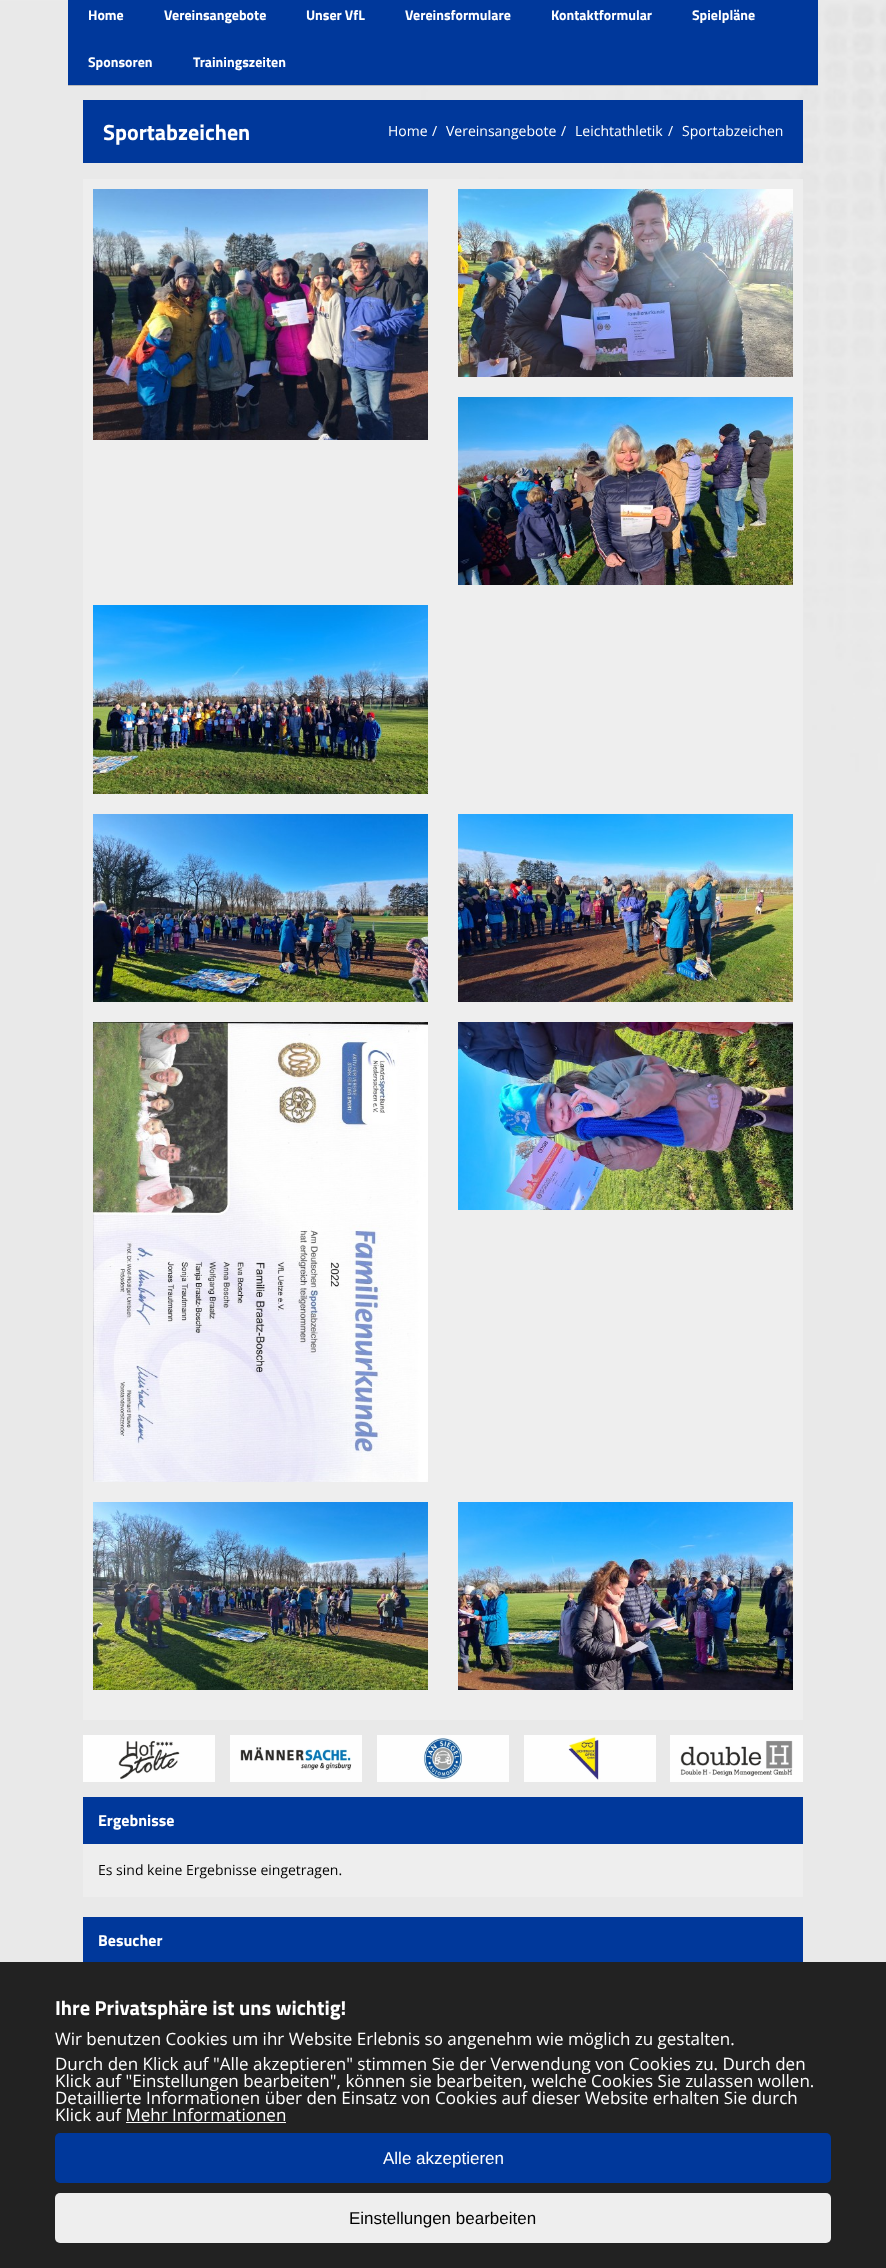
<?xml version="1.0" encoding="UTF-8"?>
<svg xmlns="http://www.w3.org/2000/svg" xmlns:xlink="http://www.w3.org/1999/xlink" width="886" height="2268">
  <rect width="100%" height="100%" fill="#ffffff" />
  <image x="0" y="0" width="886" height="1962" xlink:href="image1.png" />
  <rect x="68" y="-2" width="750" height="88" fill="#000000" fill-opacity="0.2" filter="blur(0.5px)" />
  <rect x="68" width="750" height="85" fill="#00389b" />
  <rect x="83" y="100" width="720" height="63" fill="#00389b" />
  <rect x="83" y="179" width="720" height="1541" fill="#eeeeee" />
  <image x="93" y="189" width="335" height="251" xlink:href="image2.png" />
  <image x="458" y="189" width="335" height="188" xlink:href="image3.png" />
  <image x="458" y="397" width="335" height="188" xlink:href="image4.png" />
  <image x="93" y="605" width="335" height="189" xlink:href="image5.png" />
  <image x="93" y="814" width="335" height="188" xlink:href="image6.png" />
  <image x="458" y="814" width="335" height="188" xlink:href="image7.png" />
  <image x="93" y="1022" width="335" height="460" xlink:href="image8.png" />
  <image x="458" y="1022" width="335" height="188" xlink:href="image9.png" />
  <image x="93" y="1502" width="335" height="188" xlink:href="image10.png" />
  <image x="458" y="1502" width="335" height="188" xlink:href="image11.png" />
  <image x="83" y="1735" width="132" height="47" xlink:href="image12.png" />
  <image x="230" y="1735" width="132" height="47" xlink:href="image13.png" />
  <image x="377" y="1735" width="132" height="47" xlink:href="image14.png" />
  <image x="524" y="1735" width="132" height="47" xlink:href="image15.png" />
  <image x="670" y="1735" width="133" height="47" xlink:href="image16.png" />
  <rect x="83" y="1844" width="720" height="53" fill="#eeeeee" />
  <rect x="83" y="1797" width="720" height="47" fill="#00389b" />
  <rect x="83" y="1917" width="720" height="45" fill="#00389b" />
  <rect y="1962" width="886" height="306" fill="#222222" />
  <rect x="126" y="2122" width="160" height="1" fill="#ffffff" />
  <rect x="55" y="2133" width="776" height="50" rx="5" fill="#00389b" />
  <rect x="55" y="2193" width="776" height="50" rx="5" fill="#eeeeee" />
  <text x="88" y="20" style="font-family: Titillium Web; font-size: 14px; font-weight: bold; fill: #ffffff">Home</text>
  <text x="164" y="20" style="font-family: Titillium Web; font-size: 14px; font-weight: bold; fill: #ffffff">Vereinsangebote</text>
  <text x="306" y="20" style="font-family: Titillium Web; font-size: 14px; font-weight: bold; fill: #ffffff">Unser VfL</text>
  <text x="405" y="20" style="font-family: Titillium Web; font-size: 14px; font-weight: bold; fill: #ffffff">Vereinsformulare</text>
  <text x="551" y="20" style="font-family: Titillium Web; font-size: 14px; font-weight: bold; fill: #ffffff">Kontaktformular</text>
  <text x="692" y="20" style="font-family: Titillium Web; font-size: 14px; font-weight: bold; fill: #ffffff">Spielpläne</text>
  <text x="88" y="67" style="font-family: Titillium Web; font-size: 14px; font-weight: bold; fill: #ffffff">Sponsoren</text>
  <text x="193" y="67" style="font-family: Titillium Web; font-size: 14px; font-weight: bold; fill: #ffffff">Trainingszeiten</text>
  <text x="103" y="140" style="font-family: Titillium Web; font-size: 22px; font-weight: bold; fill: #ffffff">Sportabzeichen</text>
  <text x="388" y="136" style="font-family: Open Sans; font-size: 14px; fill: #ffffff">Home</text>
  <text x="432" y="136" style="font-family: Open Sans; font-size: 14px; fill: #ffffff">/</text>
  <text x="446" y="136" style="font-family: Open Sans; font-size: 14px; fill: #ffffff">Vereinsangebote</text>
  <text x="561" y="136" style="font-family: Open Sans; font-size: 14px; fill: #ffffff">/</text>
  <text x="575" y="136" style="font-family: Open Sans; font-size: 14px; fill: #ffffff">Leichtathletik</text>
  <text x="668" y="136" style="font-family: Open Sans; font-size: 14px; fill: #ffffff">/</text>
  <text x="682" y="136" style="font-family: Open Sans; font-size: 14px; fill: #ffffff">Sportabzeichen</text>
  <text x="98" y="1826" style="font-family: Titillium Web; font-size: 16px; font-weight: bold; fill: #ffffff">Ergebnisse</text>
  <text x="98" y="1875" style="font-family: Open Sans; font-size: 14px; fill: #000000">Es sind keine Ergebnisse eingetragen.</text>
  <text x="98" y="1946" style="font-family: Titillium Web; font-size: 16px; font-weight: bold; fill: #ffffff">Besucher</text>
  <text x="55" y="2015" style="font-family: Titillium Web; font-size: 20.4px; font-weight: bold; fill: #ffffff">Ihre Privatsphäre ist uns wichtig!</text>
  <text x="55" y="2045" style="font-family: Open Sans; font-size: 17px; fill: #ffffff">Wir benutzen Cookies um ihr Website Erlebnis so angenehm wie möglich zu gestalten.</text>
  <text x="55" y="2070" style="font-family: Open Sans; font-size: 17px; fill: #ffffff">Durch den Klick auf "Alle akzeptieren" stimmen Sie der Verwendung von Cookies zu. Durch den</text>
  <text x="55" y="2087" style="font-family: Open Sans; font-size: 17px; fill: #ffffff">Klick auf "Einstellungen bearbeiten", können sie bearbeiten, welche Cookies Sie zulassen wollen.</text>
  <text x="55" y="2104" style="font-family: Open Sans; font-size: 17px; fill: #ffffff">Detaillierte Informationen über den Einsatz von Cookies auf dieser Website erhalten Sie durch</text>
  <text x="55" y="2121" style="font-family: Open Sans; font-size: 17px; fill: #ffffff">Klick auf Mehr Informationen</text>
  <text x="383" y="2164" style="font-family: Liberation Sans; font-size: 17px; fill: #ffffff">Alle akzeptieren</text>
  <text x="349" y="2224" style="font-family: Liberation Sans; font-size: 17px; fill: #000000">Einstellungen bearbeiten</text>
</svg>
